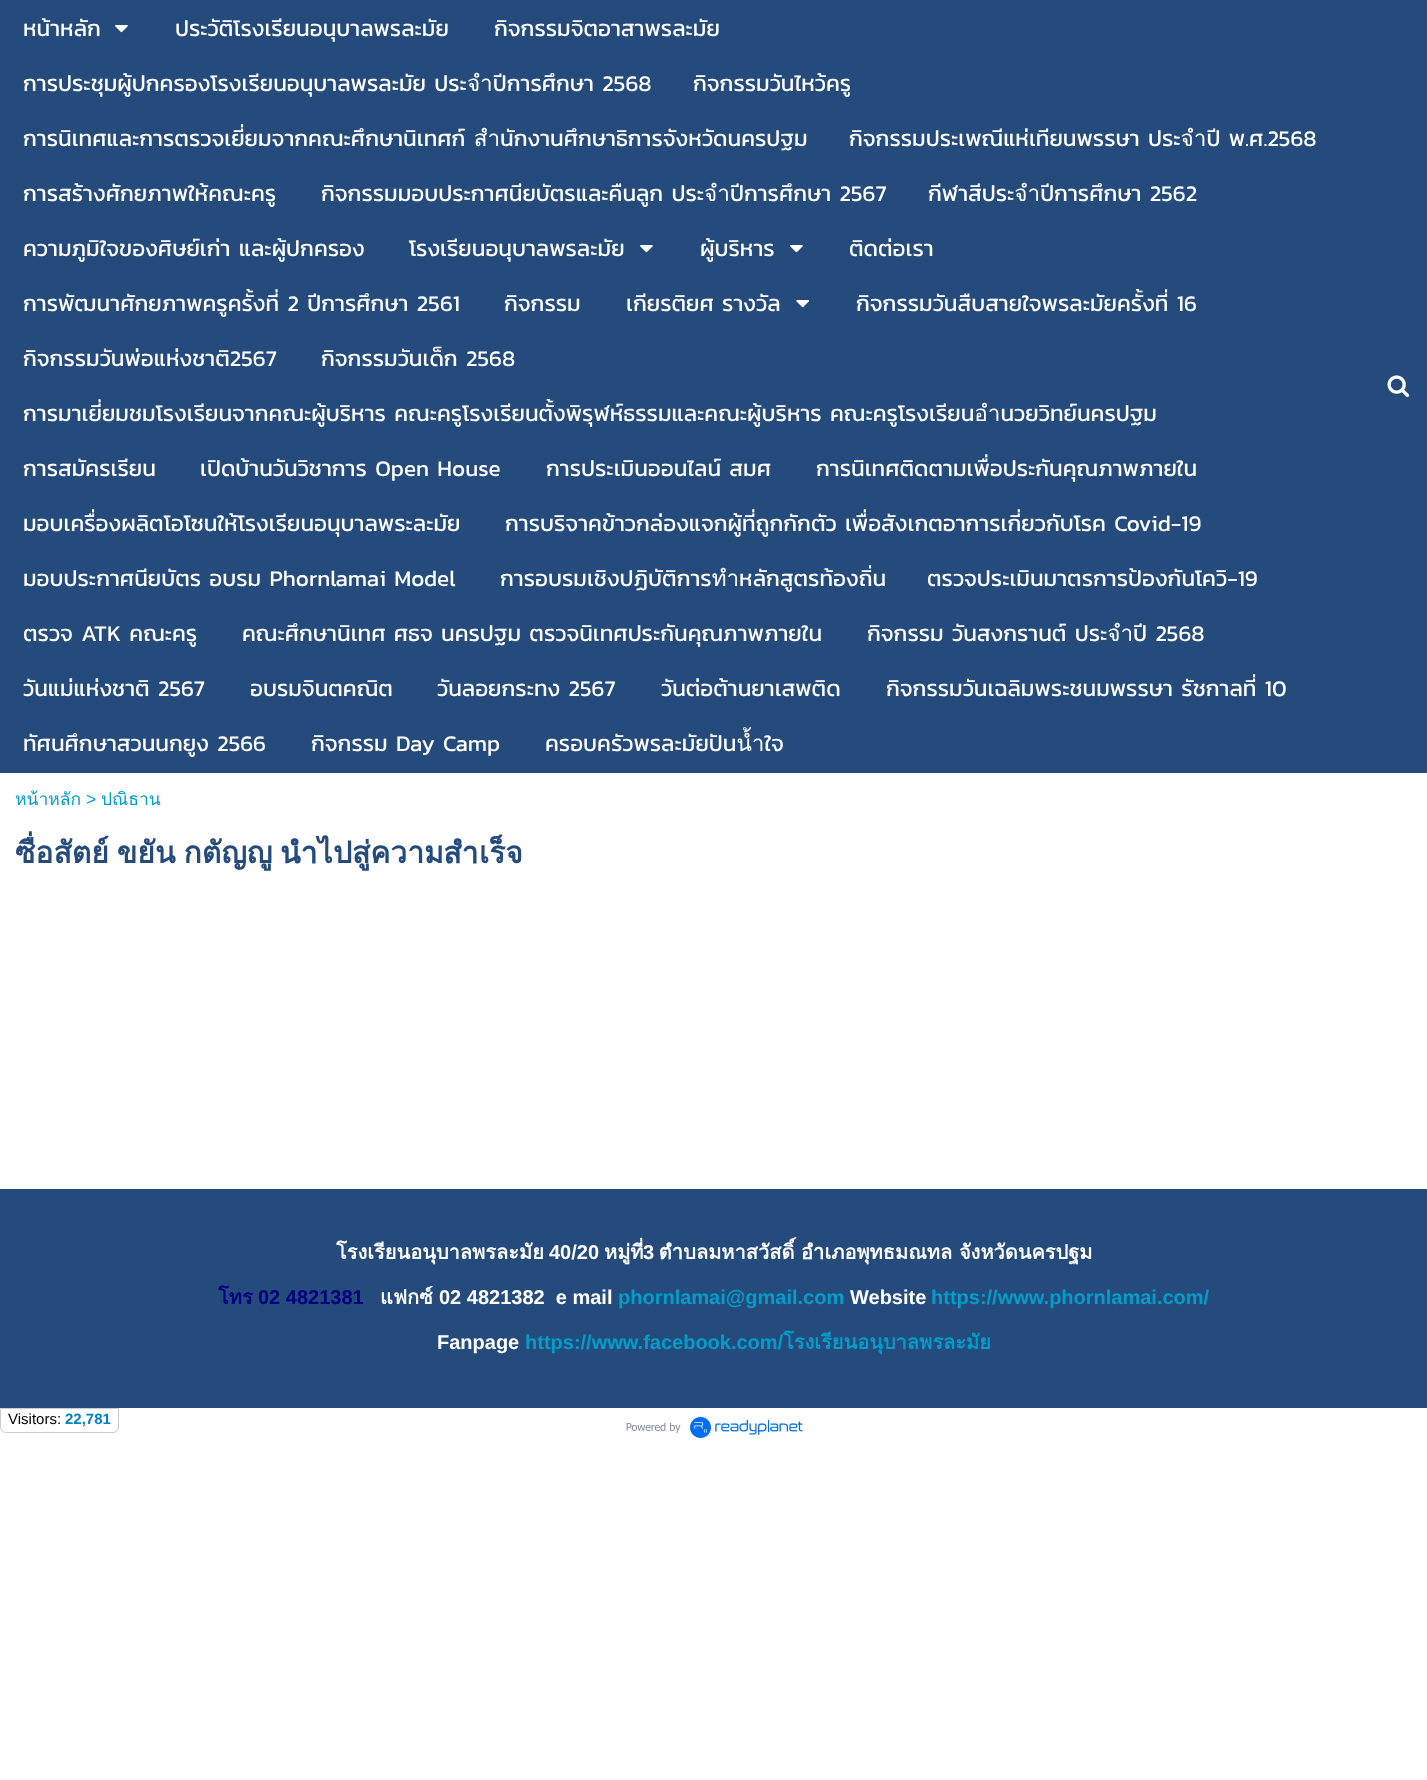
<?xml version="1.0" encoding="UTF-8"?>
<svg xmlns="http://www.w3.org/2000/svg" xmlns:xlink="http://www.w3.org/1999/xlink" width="1427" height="1780">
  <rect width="100%" height="100%" fill="#ffffff" />
  <rect width="1427" height="773" fill="#254b7c" />
  <image x="115" y="25" width="13" height="8" xlink:href="image1.png" />
  <image x="640" y="245" width="13" height="8" xlink:href="image1.png" />
  <image x="790" y="245" width="13" height="8" xlink:href="image1.png" />
  <image x="796" y="300" width="14" height="8" xlink:href="image2.png" />
  <image x="1387" y="375" width="23" height="23" xlink:href="image3.png" />
  <rect y="1189" width="1427" height="219" fill="#254b7c" />
  <path d="M 0.5 1408.5 h 118 v 18.5 c 0 3 -2.5 5.5 -5.5 5.5 h -107 c -3 0 -5.5 -2.5 -5.5 -5.5 z" fill="none" stroke="#cccccc" />
  <image x="626" y="1417" width="177" height="21" xlink:href="image4.png" />
  <text x="23" y="36" style="font-family: Kanit; font-size: 22.5px; fill: #ffffff">หน้าหลัก</text>
  <text x="175" y="36" style="font-family: Kanit; font-size: 22.5px; fill: #ffffff">ประวัติโรงเรียนอนุบาลพรละมัย</text>
  <text x="494" y="36" style="font-family: Kanit; font-size: 22.5px; fill: #ffffff">กิจกรรมจิตอาสาพรละมัย</text>
  <text x="23" y="91" style="font-family: Kanit; font-size: 22.5px; fill: #ffffff">การประชุมผู้ปกครองโรงเรียนอนุบาลพรละมัย ประจำปีการศึกษา 2568</text>
  <text x="693" y="91" style="font-family: Kanit; font-size: 22.5px; fill: #ffffff">กิจกรรมวันไหว้ครู</text>
  <text x="23" y="146" style="font-family: Kanit; font-size: 22.5px; fill: #ffffff">การนิเทศและการตรวจเยี่ยมจากคณะศึกษานิเทศก์ สำนักงานศึกษาธิการจังหวัดนครปฐม</text>
  <text x="849" y="146" style="font-family: Kanit; font-size: 22.5px; fill: #ffffff">กิจกรรมประเพณีแห่เทียนพรรษา ประจำปี พ.ศ.2568</text>
  <text x="23" y="201" style="font-family: Kanit; font-size: 22.5px; fill: #ffffff">การสร้างศักยภาพให้คณะครู</text>
  <text x="321" y="201" style="font-family: Kanit; font-size: 22.5px; fill: #ffffff">กิจกรรมมอบประกาศนียบัตรและคืนลูก ประจำปีการศึกษา 2567</text>
  <text x="928" y="201" style="font-family: Kanit; font-size: 22.5px; fill: #ffffff">กีฬาสีประจำปีการศึกษา 2562</text>
  <text x="23" y="256" style="font-family: Kanit; font-size: 22.5px; fill: #ffffff">ความภูมิใจของศิษย์เก่า และผู้ปกครอง</text>
  <text x="409" y="256" style="font-family: Kanit; font-size: 22.5px; fill: #ffffff">โรงเรียนอนุบาลพรละมัย</text>
  <text x="700" y="256" style="font-family: Kanit; font-size: 22.5px; fill: #ffffff">ผู้บริหาร</text>
  <text x="849" y="256" style="font-family: Kanit; font-size: 22.5px; fill: #ffffff">ติดต่อเรา</text>
  <text x="23" y="311" style="font-family: Kanit; font-size: 22.5px; fill: #ffffff">การพัฒนาศักยภาพครูครั้งที่ 2 ปีการศึกษา 2561</text>
  <text x="504" y="311" style="font-family: Kanit; font-size: 22.5px; fill: #ffffff">กิจกรรม</text>
  <text x="626" y="311" style="font-family: Kanit; font-size: 22.5px; fill: #ffffff">เกียรติยศ รางวัล</text>
  <text x="856" y="311" style="font-family: Kanit; font-size: 22.5px; fill: #ffffff">กิจกรรมวันสืบสายใจพรละมัยครั้งที่ 16</text>
  <text x="23" y="366" style="font-family: Kanit; font-size: 22.5px; fill: #ffffff">กิจกรรมวันพ่อแห่งชาติ2567</text>
  <text x="321" y="366" style="font-family: Kanit; font-size: 22.5px; fill: #ffffff">กิจกรรมวันเด็ก 2568</text>
  <text x="23" y="421" style="font-family: Kanit; font-size: 22.5px; fill: #ffffff">การมาเยี่ยมชมโรงเรียนจากคณะผู้บริหาร คณะครูโรงเรียนตั้งพิรุฬห์ธรรมและคณะผู้บริหาร คณะครูโรงเรียนอำนวยวิทย์นครปฐม</text>
  <text x="23" y="476" style="font-family: Kanit; font-size: 22.5px; fill: #ffffff">การสมัครเรียน</text>
  <text x="200" y="476" style="font-family: Kanit; font-size: 22.5px; fill: #ffffff">เปิดบ้านวันวิชาการ Open House</text>
  <text x="546" y="476" style="font-family: Kanit; font-size: 22.5px; fill: #ffffff">การประเมินออนไลน์ สมศ</text>
  <text x="816" y="476" style="font-family: Kanit; font-size: 22.5px; fill: #ffffff">การนิเทศติดตามเพื่อประกันคุณภาพภายใน</text>
  <text x="23" y="531" style="font-family: Kanit; font-size: 22.5px; fill: #ffffff">มอบเครื่องผลิตโอโซนให้โรงเรียนอนุบาลพระละมัย</text>
  <text x="505" y="531" style="font-family: Kanit; font-size: 22.5px; fill: #ffffff">การบริจาคข้าวกล่องแจกผู้ที่ถูกกักตัว เพื่อสังเกตอาการเกี่ยวกับโรค Covid-19</text>
  <text x="23" y="586" style="font-family: Kanit; font-size: 22.5px; fill: #ffffff">มอบประกาศนียบัตร อบรม Phornlamai Model</text>
  <text x="500" y="586" style="font-family: Kanit; font-size: 22.5px; fill: #ffffff">การอบรมเชิงปฏิบัติการทำหลักสูตรท้องถิ่น</text>
  <text x="927" y="586" style="font-family: Kanit; font-size: 22.5px; fill: #ffffff">ตรวจประเมินมาตรการป้องกันโควิ-19</text>
  <text x="23" y="641" style="font-family: Kanit; font-size: 22.5px; fill: #ffffff">ตรวจ ATK คณะครู</text>
  <text x="242" y="641" style="font-family: Kanit; font-size: 22.5px; fill: #ffffff">คณะศึกษานิเทศ ศธจ นครปฐม ตรวจนิเทศประกันคุณภาพภายใน</text>
  <text x="867" y="641" style="font-family: Kanit; font-size: 22.5px; fill: #ffffff">กิจกรรม วันสงกรานต์ ประจำปี 2568</text>
  <text x="23" y="696" style="font-family: Kanit; font-size: 22.5px; fill: #ffffff">วันแม่แห่งชาติ 2567</text>
  <text x="250" y="696" style="font-family: Kanit; font-size: 22.5px; fill: #ffffff">อบรมจินตคณิต</text>
  <text x="437" y="696" style="font-family: Kanit; font-size: 22.5px; fill: #ffffff">วันลอยกระทง 2567</text>
  <text x="661" y="696" style="font-family: Kanit; font-size: 22.5px; fill: #ffffff">วันต่อต้านยาเสพติด</text>
  <text x="886" y="696" style="font-family: Kanit; font-size: 22.5px; fill: #ffffff">กิจกรรมวันเฉลิมพระชนมพรรษา รัชกาลที่ 10</text>
  <text x="23" y="751" style="font-family: Kanit; font-size: 22.5px; fill: #ffffff">ทัศนศึกษาสวนนกยูง 2566</text>
  <text x="311" y="751" style="font-family: Kanit; font-size: 22.5px; fill: #ffffff">กิจกรรม Day Camp</text>
  <text x="545" y="751" style="font-family: Kanit; font-size: 22.5px; fill: #ffffff">ครอบครัวพรละมัยปันน้ำใจ</text>
  <text x="15" y="805" style="font-family: Loma; font-size: 17.5px; fill: #009eca">หน้าหลัก</text>
  <text x="86" y="805" style="font-family: Liberation Sans; font-size: 17.5px; fill: #009eca">&gt;</text>
  <text x="101" y="805" style="font-family: Loma; font-size: 17.5px; fill: #009eca">ปณิธาน</text>
  <text x="15" y="863" word-spacing="-2" style="font-family: Loma; font-size: 30px; font-weight: bold; fill: #254b7c">ซื่อสัตย์ ขยัน กตัญญู นำไปสู่ความสำเร็จ</text>
  <text x="336" y="1259" style="font-family: Loma; font-size: 20px; font-weight: bold; fill: #ffffff">โรงเรียนอนุบาลพรละมัย</text>
  <text x="549" y="1259" style="font-family: Liberation Sans; font-size: 20px; font-weight: bold; fill: #ffffff">40/20</text>
  <text x="604" y="1259" style="font-family: Loma; font-size: 20px; font-weight: bold; fill: #ffffff">หมู่ที่</text>
  <text x="643" y="1259" style="font-family: Liberation Sans; font-size: 20px; font-weight: bold; fill: #ffffff">3</text>
  <text x="659" y="1259" style="font-family: Loma; font-size: 20px; font-weight: bold; fill: #ffffff">ตำบลมหาสวัสดิ์ อำเภอพุทธมณทล จังหวัดนครปฐม</text>
  <text x="218" y="1304" style="font-family: Loma; font-size: 20px; font-weight: bold; fill: #000080">โทร</text>
  <text x="258" y="1304" style="font-family: Liberation Sans; font-size: 20px; font-weight: bold; fill: #000080">02 4821381</text>
  <text x="380" y="1304" style="font-family: Loma; font-size: 20px; font-weight: bold; fill: #ffffff">แฟกซ์</text>
  <text x="439" y="1304" style="font-family: Liberation Sans; font-size: 20px; font-weight: bold; fill: #ffffff" xml:space="preserve">02 4821382  e mail</text>
  <text x="618" y="1304" style="font-family: Liberation Sans; font-size: 20px; font-weight: bold; fill: #009eca">phornlamai@gmail.com</text>
  <text x="850" y="1304" style="font-family: Liberation Sans; font-size: 20px; font-weight: bold; fill: #ffffff">Website</text>
  <text x="931" y="1304" style="font-family: Liberation Sans; font-size: 20px; font-weight: bold; fill: #009eca">https://www.phornlamai.com/</text>
  <text x="437" y="1349" style="font-family: Liberation Sans; font-size: 20px; font-weight: bold; fill: #ffffff">Fanpage</text>
  <text x="525" y="1349" style="font-family: Liberation Sans; font-size: 20px; font-weight: bold; fill: #009eca">https://www.facebook.com/</text>
  <text x="783" y="1349" style="font-family: Loma; font-size: 20px; font-weight: bold; fill: #009eca">โรงเรียนอนุบาลพรละมัย</text>
  <text x="8" y="1424" style="font-family: Liberation Sans; font-size: 15px; fill: #000000">Visitors:</text>
  <text x="65" y="1424" style="font-family: Liberation Sans; font-size: 15px; font-weight: bold; fill: #0081c8">22,781</text>
</svg>
